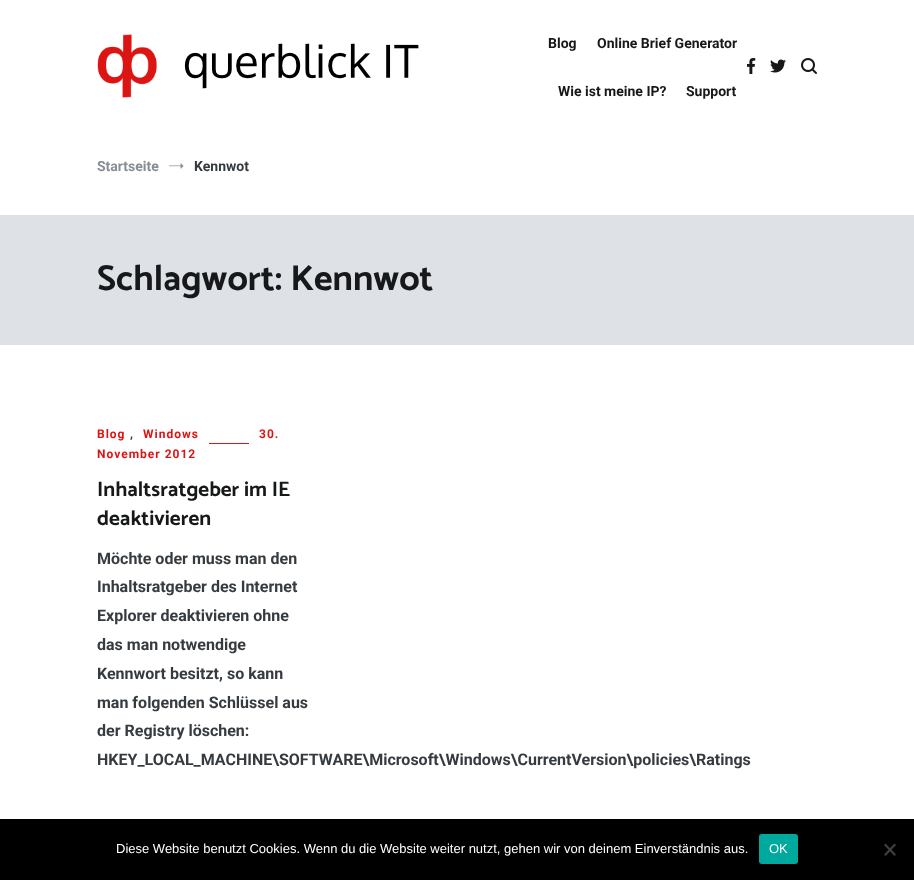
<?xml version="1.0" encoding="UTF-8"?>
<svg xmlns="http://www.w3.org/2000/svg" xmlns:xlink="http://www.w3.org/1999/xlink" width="914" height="880">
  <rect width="100%" height="100%" fill="#ffffff" />
  <image x="97" y="34" width="322" height="64" xlink:href="image1.png" />
  <image x="747" y="58" width="9" height="16" xlink:href="image2.png" />
  <image x="770" y="59" width="16" height="14" xlink:href="image3.png" />
  <image x="801" y="58" width="16" height="16" xlink:href="image4.png" />
  <image x="169" y="163" width="15" height="6" xlink:href="image5.png" />
  <rect y="215" width="914" height="130" fill="#dee2e6" />
  <rect x="209" y="443" width="40" height="1" fill="#dd1414" />
  <rect y="819" width="914" height="61" fill="#000000" />
  <rect x="759" y="834" width="39" height="30" rx="3" fill="#00a99d" />
  <path d="M 894.5 843.5 l 1.5 1.5 l -10.5 11 l -1.5 -1.5 z" fill="#404040" />
  <path d="M 884 845 l 1.5 -1.5 l 10.5 11 l -1.5 1.5 z" fill="#404040" />
  <text x="548" y="48" style="font-family: Roboto; font-size: 14px; font-weight: bold; fill: #16181a">Blog</text>
  <text x="597" y="48" style="font-family: Roboto; font-size: 14px; font-weight: bold; fill: #16181a">Online Brief Generator</text>
  <text x="558" y="96" style="font-family: Roboto; font-size: 14px; font-weight: bold; fill: #16181a">Wie ist meine IP?</text>
  <text x="686" y="96" style="font-family: Roboto; font-size: 14px; font-weight: bold; fill: #16181a">Support</text>
  <text x="97" y="171" style="font-family: Roboto; font-size: 14px; font-weight: bold; fill: #868e96">Startseite</text>
  <text x="194" y="171" style="font-family: Roboto; font-size: 14px; font-weight: bold; fill: #363b40">Kennwot</text>
  <text x="97" y="290" style="font-family: Catamaran; font-size: 36px; font-weight: bold; fill: #16181a">Schlagwort: Kennwot</text>
  <text x="97" y="438" style="font-family: Roboto; font-size: 12px; font-weight: bold; letter-spacing: 1px; fill: #dd1414">Blog</text>
  <text x="259" y="438" style="font-family: Roboto; font-size: 12px; font-weight: bold; letter-spacing: 1px; fill: #dd1414">30.</text>
  <text x="97" y="458" style="font-family: Roboto; font-size: 12px; font-weight: bold; letter-spacing: 1px; fill: #dd1414">November 2012</text>
  <text x="130" y="438" style="font-family: Roboto; font-size: 12px; font-weight: bold; letter-spacing: 1px; fill: #363b40">,</text>
  <text x="143" y="438" style="font-family: Roboto; font-size: 12px; font-weight: bold; letter-spacing: 1px; fill: #dd1414">Windows</text>
  <text x="97" y="496" style="font-family: Catamaran; font-size: 21px; font-weight: bold; fill: #16181a">Inhaltsratgeber im IE</text>
  <text x="97" y="525" style="font-family: Catamaran; font-size: 21px; font-weight: bold; fill: #16181a">deaktivieren</text>
  <text x="97" y="564" style="font-family: Roboto; font-size: 16px; font-weight: bold; fill: #363b40">Möchte oder muss man den</text>
  <text x="97" y="592" style="font-family: Roboto; font-size: 16px; font-weight: bold; fill: #363b40">Inhaltsratgeber des Internet</text>
  <text x="97" y="621" style="font-family: Roboto; font-size: 16px; font-weight: bold; fill: #363b40">Explorer deaktivieren ohne</text>
  <text x="97" y="650" style="font-family: Roboto; font-size: 16px; font-weight: bold; fill: #363b40">das man notwendige</text>
  <text x="97" y="679" style="font-family: Roboto; font-size: 16px; font-weight: bold; fill: #363b40">Kennwort besitzt, so kann</text>
  <text x="97" y="708" style="font-family: Roboto; font-size: 16px; font-weight: bold; fill: #363b40">man folgenden Schlüssel aus</text>
  <text x="97" y="736" style="font-family: Roboto; font-size: 16px; font-weight: bold; fill: #363b40">der Registry löschen:</text>
  <text x="97" y="765" style="font-family: Roboto; font-size: 16px; font-weight: bold; fill: #363b40">HKEY_LOCAL_MACHINE\SOFTWARE\Microsoft\Windows\CurrentVersion\policies\Ratings</text>
  <text x="116" y="853" style="font-family: Liberation Sans; font-size: 13px; fill: #ffffff">Diese Website benutzt Cookies. Wenn du die Website weiter nutzt, gehen wir von deinem Einverständnis aus.</text>
  <text x="769" y="853" style="font-family: Liberation Sans; font-size: 13px; fill: #ffffff">OK</text>
</svg>
